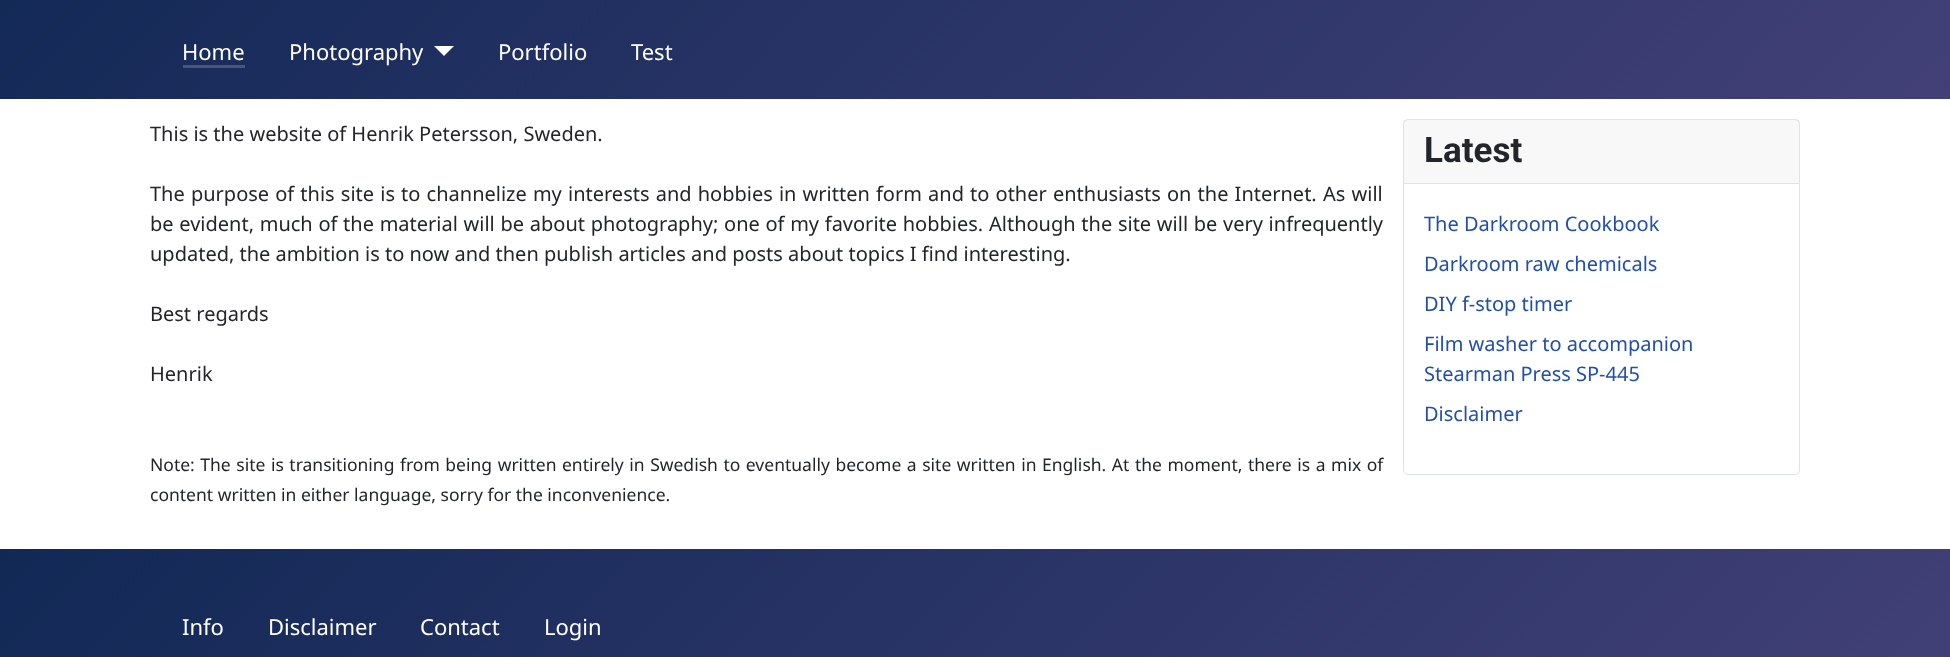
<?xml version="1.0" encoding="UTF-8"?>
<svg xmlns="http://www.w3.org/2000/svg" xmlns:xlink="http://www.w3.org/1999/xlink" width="1950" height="657">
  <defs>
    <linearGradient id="g1" gradientUnits="userSpaceOnUse" x1="439" y1="-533" x2="1511" y2="538"><stop offset="0" stop-color="#112855" /><stop offset="1" stop-color="#424077" /></linearGradient>
    <linearGradient id="g2" gradientUnits="userSpaceOnUse" x1="449" y1="100" x2="1501" y2="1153"><stop offset="0" stop-color="#112855" /><stop offset="1" stop-color="#424077" /></linearGradient>
  </defs>
  <rect width="100%" height="100%" fill="#ffffff" />
  <rect width="1950" height="99" fill="url(#g1)" />
  <rect x="183" y="65" width="62" height="3" fill="#47567c" />
  <path d="M 434 46 h 20 l -10 10 z" fill="#ffffff" />
  <rect x="1403.5" y="119.5" width="396" height="355" rx="4.5" fill="none" stroke="#dfe3e7" />
  <rect x="1404" y="120" width="395" height="63" fill="#22262a" fill-opacity="0.03" />
  <rect x="1404" y="183" width="395" height="1" fill="#dfe3e7" />
  <rect y="549" width="1950" height="108" fill="url(#g2)" />
  <text x="182" y="60" style="font-family: Noto Sans; font-size: 22px; fill: #ffffff">Home</text>
  <text x="289" y="60" style="font-family: Noto Sans; font-size: 22px; fill: #ffffff">Photography</text>
  <text x="498" y="60" style="font-family: Noto Sans; font-size: 22px; fill: #ffffff">Portfolio</text>
  <text x="631" y="60" style="font-family: Noto Sans; font-size: 22px; fill: #ffffff">Test</text>
  <text x="150" y="141" style="font-family: Noto Sans; font-size: 20px; fill: #22262a">This is the website of Henrik Petersson, Sweden.</text>
  <text x="150" y="201" word-spacing="0.95" style="font-family: Noto Sans; font-size: 20px; fill: #22262a">The purpose of this site is to channelize my interests and hobbies in written form and to other enthusiasts on the Internet.</text>
  <text x="1323" y="201" word-spacing="0.95" style="font-family: Noto Sans; font-size: 20px; fill: #22262a">As will</text>
  <text x="150" y="231" word-spacing="0.5" style="font-family: Noto Sans; font-size: 20px; fill: #22262a">be evident, much of the material will be about photography; one of my favorite hobbies.</text>
  <text x="989" y="231" word-spacing="0.5" style="font-family: Noto Sans; font-size: 20px; fill: #22262a">Although the site will be very infrequently</text>
  <text x="150" y="261" style="font-family: Noto Sans; font-size: 20px; fill: #22262a">updated, the ambition is to now and then publish articles and posts about topics I find interesting.</text>
  <text x="150" y="321" style="font-family: Noto Sans; font-size: 20px; fill: #22262a">Best regards</text>
  <text x="150" y="381" style="font-family: Noto Sans; font-size: 20px; fill: #22262a">Henrik</text>
  <text x="150" y="471" word-spacing="1" style="font-family: Noto Sans; font-size: 17.5px; fill: #22262a">Note: The site is transitioning from being written entirely in Swedish to eventually become a site written in English. At the moment, there is a mix of</text>
  <text x="150" y="501" style="font-family: Noto Sans; font-size: 17.5px; fill: #22262a">content written in either language, sorry for the inconvenience.</text>
  <text x="1424" y="162" style="font-family: Roboto; font-size: 35px; font-weight: bold; fill: #22262a">Latest</text>
  <text x="1424" y="231" style="font-family: Noto Sans; font-size: 20px; fill: #224faa">The Darkroom Cookbook</text>
  <text x="1424" y="271" style="font-family: Noto Sans; font-size: 20px; fill: #224faa">Darkroom raw chemicals</text>
  <text x="1424" y="311" style="font-family: Noto Sans; font-size: 20px; fill: #224faa">DIY f-stop timer</text>
  <text x="1424" y="351" style="font-family: Noto Sans; font-size: 20px; fill: #224faa">Film washer to accompanion</text>
  <text x="1424" y="381" style="font-family: Noto Sans; font-size: 20px; fill: #224faa">Stearman Press SP-445</text>
  <text x="1424" y="421" style="font-family: Noto Sans; font-size: 20px; fill: #224faa">Disclaimer</text>
  <text x="182" y="635" style="font-family: Noto Sans; font-size: 22px; fill: #ffffff">Info</text>
  <text x="268" y="635" style="font-family: Noto Sans; font-size: 22px; fill: #ffffff">Disclaimer</text>
  <text x="420" y="635" style="font-family: Noto Sans; font-size: 22px; fill: #ffffff">Contact</text>
  <text x="544" y="635" style="font-family: Noto Sans; font-size: 22px; fill: #ffffff">Login</text>
</svg>
